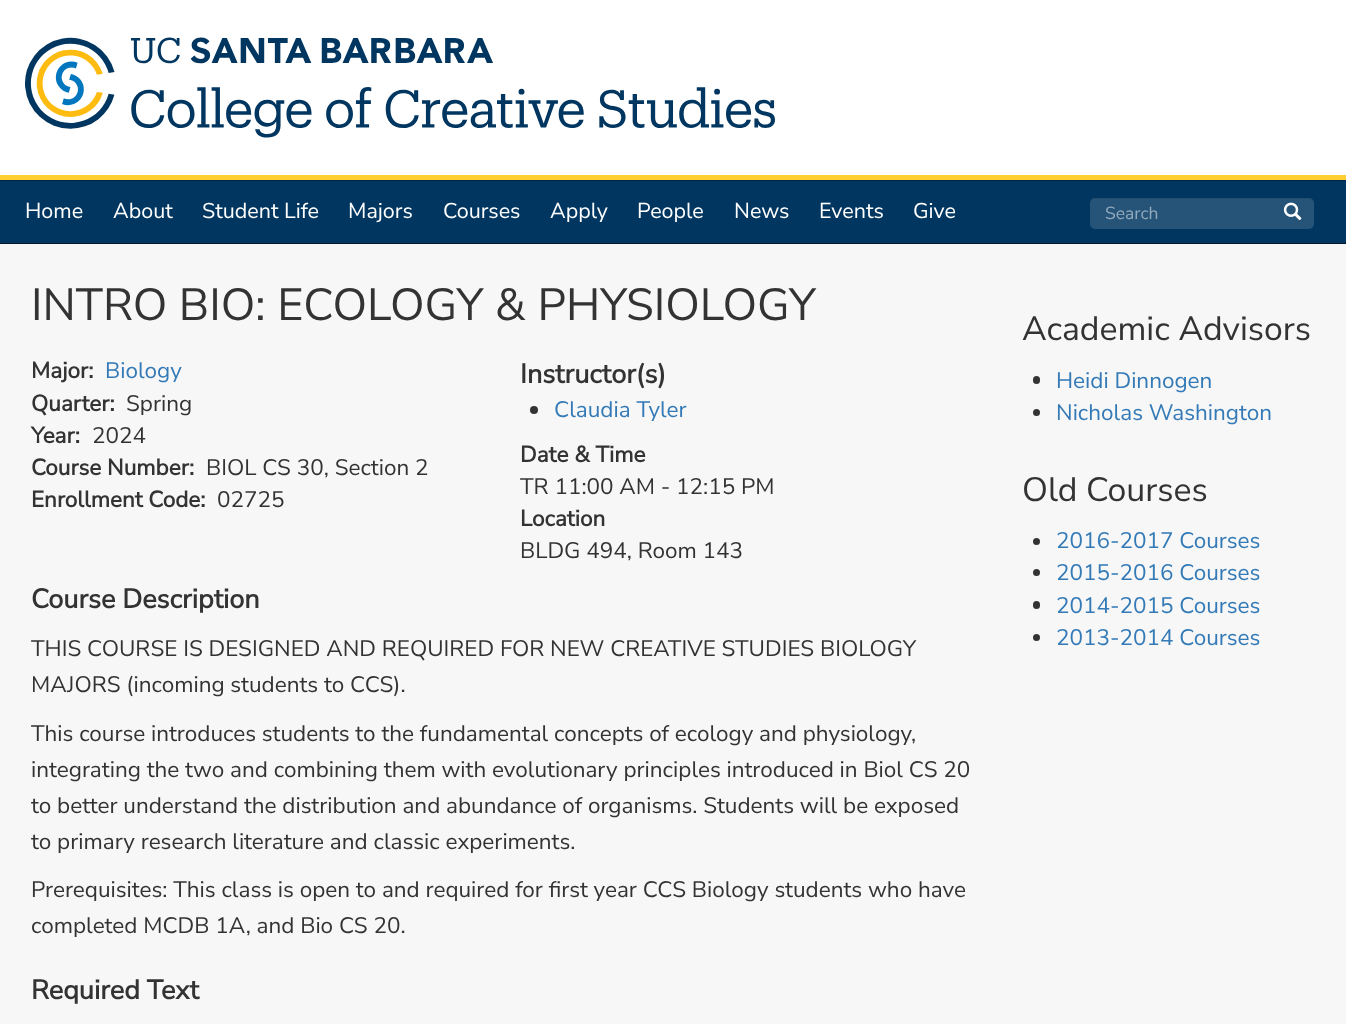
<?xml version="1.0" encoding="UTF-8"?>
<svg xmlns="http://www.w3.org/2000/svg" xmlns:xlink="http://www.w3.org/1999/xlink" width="1346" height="1024">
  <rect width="100%" height="100%" fill="#ffffff" />
  <rect y="175" width="1346" height="5" fill="#ffce34" />
  <image x="25" y="37" width="750" height="101" xlink:href="image1.png" />
  <rect y="181" width="1346" height="62" fill="#003660" />
  <rect y="180" width="1346" height="1" fill="#002643" />
  <rect y="243" width="1346" height="1" fill="#001b30" />
  <rect x="1090" y="198" width="224" height="31" rx="5" fill="#265478" />
  <path d="M 1094 199 h 215 c 3 0 5 2 5 4 c 0 -3 -2 -5 -5 -5 h -214 c -3 0 -5 2 -5 5 c 0 -2 2 -4 4 -4 z" fill="#000000" fill-opacity="0.07" />
  <image x="1283" y="202" width="19" height="19" xlink:href="image2.png" />
  <rect y="244" width="1346" height="780" fill="#f7f7f7" />
  <circle cx="534" cy="410" r="4" fill="#333333" />
  <rect x="1033" y="376" width="7" height="8" rx="3.5" fill="#333333" />
  <circle cx="1036.5" cy="412.5" r="3.5" fill="#333333" />
  <circle cx="1036.5" cy="541.5" r="3.5" fill="#333333" />
  <circle cx="1036.5" cy="572.5" r="3.5" fill="#333333" />
  <rect x="1033" y="601" width="7" height="8" rx="3.5" fill="#333333" />
  <circle cx="1036.5" cy="637.5" r="3.5" fill="#333333" />
  <text x="25" y="218" style="font-family: Nunito Sans; font-size: 21.5px; font-weight: 200; fill: #ffffff">Home</text>
  <text x="113" y="218" style="font-family: Nunito Sans; font-size: 21.5px; font-weight: 200; fill: #ffffff">About</text>
  <text x="202" y="218" style="font-family: Nunito Sans; font-size: 21.5px; font-weight: 200; fill: #ffffff">Student Life</text>
  <text x="348" y="218" style="font-family: Nunito Sans; font-size: 21.5px; font-weight: 200; fill: #ffffff">Majors</text>
  <text x="443" y="218" style="font-family: Nunito Sans; font-size: 21.5px; font-weight: 200; fill: #ffffff">Courses</text>
  <text x="550" y="218" style="font-family: Nunito Sans; font-size: 21.5px; font-weight: 200; fill: #ffffff">Apply</text>
  <text x="637" y="218" style="font-family: Nunito Sans; font-size: 21.5px; font-weight: 200; fill: #ffffff">People</text>
  <text x="734" y="218" style="font-family: Nunito Sans; font-size: 21.5px; font-weight: 200; fill: #ffffff">News</text>
  <text x="819" y="218" style="font-family: Nunito Sans; font-size: 21.5px; font-weight: 200; fill: #ffffff">Events</text>
  <text x="913" y="218" style="font-family: Nunito Sans; font-size: 21.5px; font-weight: 200; fill: #ffffff">Give</text>
  <text x="1105" y="219" style="font-family: Nunito Sans; font-size: 17.5px; font-weight: 200; fill: #93aabc">Search</text>
  <text x="31" y="320" style="font-family: Nunito Sans; font-size: 45px; font-weight: 200; fill: #333333">INTRO BIO: ECOLOGY &amp; PHYSIOLOGY</text>
  <text x="31" y="378" style="font-family: Nunito Sans; font-size: 22.5px; font-weight: bold; fill: #333333">Major:</text>
  <text x="105" y="378" style="font-family: Nunito Sans; font-size: 22.5px; font-weight: 200; fill: #337ab7">Biology</text>
  <text x="31" y="411" style="font-family: Nunito Sans; font-size: 22.5px; font-weight: bold; fill: #333333">Quarter:</text>
  <text x="126" y="411" style="font-family: Nunito Sans; font-size: 22.5px; font-weight: 200; fill: #333333">Spring</text>
  <text x="31" y="443" style="font-family: Nunito Sans; font-size: 22.5px; font-weight: bold; fill: #333333">Year:</text>
  <text x="92" y="443" style="font-family: Nunito Sans; font-size: 22.5px; font-weight: 200; fill: #333333">2024</text>
  <text x="31" y="475" style="font-family: Nunito Sans; font-size: 22.5px; font-weight: bold; fill: #333333">Course Number:</text>
  <text x="206" y="475" style="font-family: Nunito Sans; font-size: 22.5px; font-weight: 200; fill: #333333">BIOL CS 30, Section 2</text>
  <text x="31" y="507" style="font-family: Nunito Sans; font-size: 22.5px; font-weight: bold; fill: #333333">Enrollment Code:</text>
  <text x="217" y="507" style="font-family: Nunito Sans; font-size: 22.5px; font-weight: 200; fill: #333333">02725</text>
  <text x="520" y="383" style="font-family: Nunito Sans; font-size: 27px; font-weight: bold; fill: #333333">Instructor(s)</text>
  <text x="554" y="417" style="font-family: Nunito Sans; font-size: 22.5px; font-weight: 200; fill: #337ab7">Claudia Tyler</text>
  <text x="520" y="462" style="font-family: Nunito Sans; font-size: 22.5px; font-weight: bold; fill: #333333">Date &amp; Time</text>
  <text x="520" y="494" style="font-family: Nunito Sans; font-size: 22.5px; font-weight: 200; fill: #333333">TR 11:00 AM - 12:15 PM</text>
  <text x="520" y="526" style="font-family: Nunito Sans; font-size: 22.5px; font-weight: bold; fill: #333333">Location</text>
  <text x="520" y="558" style="font-family: Nunito Sans; font-size: 22.5px; font-weight: 200; fill: #333333">BLDG 494, Room 143</text>
  <text x="31" y="608" style="font-family: Nunito Sans; font-size: 27px; font-weight: bold; fill: #333333">Course Description</text>
  <text x="31" y="656" style="font-family: Nunito Sans; font-size: 22.5px; font-weight: 200; fill: #333333">THIS COURSE IS DESIGNED AND REQUIRED FOR NEW CREATIVE STUDIES BIOLOGY</text>
  <text x="31" y="692" style="font-family: Nunito Sans; font-size: 22.5px; font-weight: 200; fill: #333333">MAJORS (incoming students to CCS).</text>
  <text x="31" y="741" style="font-family: Nunito Sans; font-size: 22.5px; font-weight: 200; fill: #333333">This course introduces students to the fundamental concepts of ecology and physiology,</text>
  <text x="31" y="777" style="font-family: Nunito Sans; font-size: 22.5px; font-weight: 200; fill: #333333">integrating the two and combining them with evolutionary principles introduced in Biol CS 20</text>
  <text x="31" y="813" style="font-family: Nunito Sans; font-size: 22.5px; font-weight: 200; fill: #333333">to better understand the distribution and abundance of organisms. Students will be exposed</text>
  <text x="31" y="849" style="font-family: Nunito Sans; font-size: 22.5px; font-weight: 200; fill: #333333">to primary research literature and classic experiments.</text>
  <text x="31" y="897" style="font-family: Nunito Sans; font-size: 22.5px; font-weight: 200; fill: #333333">Prerequisites: This class is open to and required for first year CCS Biology students who have</text>
  <text x="31" y="933" style="font-family: Nunito Sans; font-size: 22.5px; font-weight: 200; fill: #333333">completed MCDB 1A, and Bio CS 20.</text>
  <text x="31" y="999" style="font-family: Nunito Sans; font-size: 27px; font-weight: bold; fill: #333333">Required Text</text>
  <text x="1022" y="340" style="font-family: Nunito Sans; font-size: 33.75px; font-weight: 200; fill: #333333">Academic Advisors</text>
  <text x="1056" y="388" style="font-family: Nunito Sans; font-size: 22.5px; font-weight: 200; fill: #337ab7">Heidi Dinnogen</text>
  <text x="1056" y="420" style="font-family: Nunito Sans; font-size: 22.5px; font-weight: 200; fill: #337ab7">Nicholas Washington</text>
  <text x="1022" y="501" style="font-family: Nunito Sans; font-size: 33.75px; font-weight: 200; fill: #333333">Old Courses</text>
  <text x="1056" y="548" style="font-family: Nunito Sans; font-size: 22.5px; font-weight: 200; fill: #337ab7">2016-2017 Courses</text>
  <text x="1056" y="580" style="font-family: Nunito Sans; font-size: 22.5px; font-weight: 200; fill: #337ab7">2015-2016 Courses</text>
  <text x="1056" y="613" style="font-family: Nunito Sans; font-size: 22.5px; font-weight: 200; fill: #337ab7">2014-2015 Courses</text>
  <text x="1056" y="645" style="font-family: Nunito Sans; font-size: 22.5px; font-weight: 200; fill: #337ab7">2013-2014 Courses</text>
</svg>
